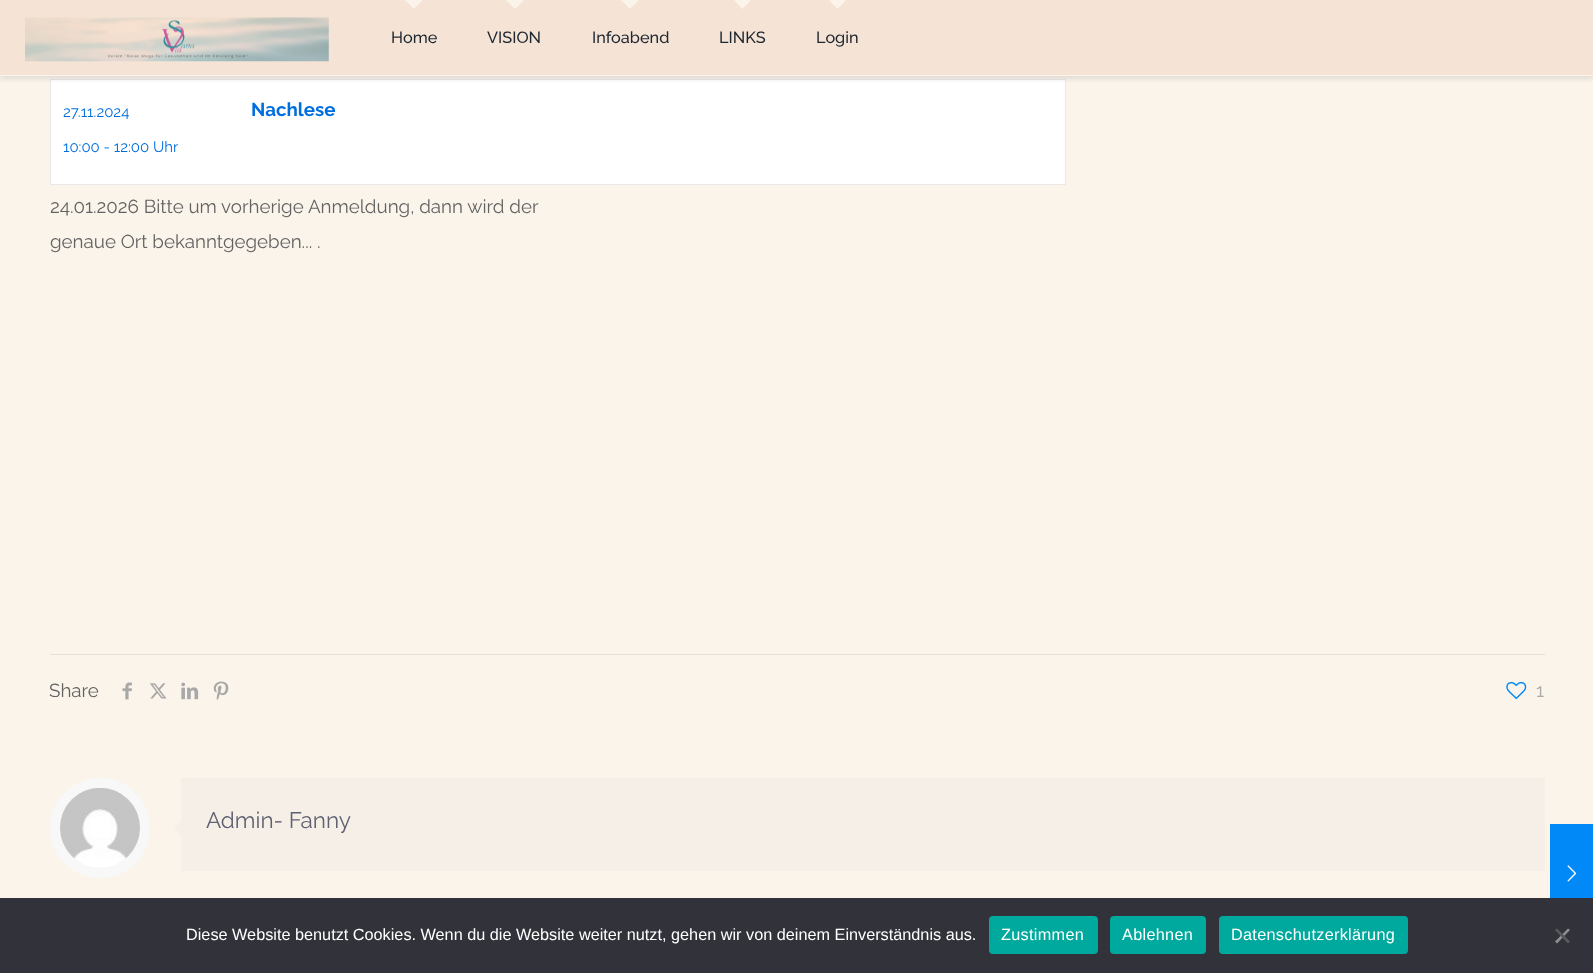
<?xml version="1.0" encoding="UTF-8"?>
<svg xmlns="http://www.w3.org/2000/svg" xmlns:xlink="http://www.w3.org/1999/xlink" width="1593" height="973">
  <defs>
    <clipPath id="clip1"><rect x="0" y="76" width="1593" height="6" /></clipPath>
  </defs>
  <rect width="100%" height="100%" fill="#fbf4eb" />
  <rect width="1593" height="75" fill="#f5e4d6" />
  <rect x="50.5" y="79.5" width="1015" height="105" fill="#ffffff" stroke="#e9e9e9" />
  <g clip-path="url(#clip1)">
    <rect y="3" width="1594" height="76" fill="#000000" fill-opacity="0.1" filter="blur(3px)" />
  </g>
  <image x="25" y="17" width="304" height="45" xlink:href="image1.png" />
  <path d="M 405 0 h 17.5 l -8.5 9 z" fill="#fbf4eb" />
  <path d="M 506 0 h 18 l -9 9 z" fill="#fbf4eb" />
  <path d="M 621 0 h 18 l -9 9 z" fill="#fbf4eb" />
  <path d="M 734 0 h 17 l -8.5 9 z" fill="#fbf4eb" />
  <path d="M 829 0 h 17 l -8.5 9 z" fill="#fbf4eb" />
  <rect x="50" y="654" width="1495" height="1" fill="#e7e0d8" />
  <image x="122" y="682" width="10" height="18" xlink:href="image2.png" />
  <image x="150" y="683" width="17" height="16" xlink:href="image3.png" />
  <image x="181" y="682" width="18" height="18" xlink:href="image4.png" />
  <image x="213" y="681" width="16" height="19" xlink:href="image5.png" />
  <image x="1506" y="681" width="21" height="18" xlink:href="image6.png" />
  <circle cx="100" cy="828" r="45" fill="none" stroke="#f8f8f8" stroke-width="10" />
  <image x="60" y="788" width="80" height="80" xlink:href="image7.png" />
  <rect x="181" y="778" width="1364" height="93" fill="#f6efe7" />
  <path d="M 181 821 v 15 l -7 -7 z" fill="#f6efe6" />
  <rect x="1550" y="824" width="43" height="74" fill="#0089f7" />
  <image x="1567" y="865" width="10" height="17" xlink:href="image8.png" />
  <rect y="898" width="1593" height="75" fill="#32323a" />
  <rect x="989" y="916" width="109" height="38" rx="4" fill="#00a99d" />
  <rect x="1110" y="916" width="96" height="38" rx="4" fill="#00a99d" />
  <rect x="1219" y="916" width="189" height="38" rx="4" fill="#00a99d" />
  <path d="M 1568 928.5 l 2 1.5 l -13 13.5 l -2 -2 z" fill="#8e8e92" />
  <path d="M 1555 930 l 2 -1.5 l 13 13 l -2 2 z" fill="#59595d" />
  <text x="391" y="43" style="font-family: 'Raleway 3'; font-size: 16.25px; font-weight: 100; fill: #1e2630">Home</text>
  <text x="487" y="43" style="font-family: 'Raleway 3'; font-size: 16.25px; font-weight: 100; fill: #1e2630">VISION</text>
  <text x="592" y="43" style="font-family: 'Raleway 3'; font-size: 16.25px; font-weight: 100; fill: #1e2630">Infoabend</text>
  <text x="719" y="43" style="font-family: 'Raleway 3'; font-size: 16.25px; font-weight: 100; fill: #1e2630">LINKS</text>
  <text x="816" y="43" style="font-family: 'Raleway 3'; font-size: 16.25px; font-weight: 100; fill: #1e2630">Login</text>
  <text x="63" y="117" style="font-family: Raleway; font-size: 15px; font-weight: 100; fill: #006edf">27.11.2024</text>
  <text x="63" y="152" style="font-family: Raleway; font-size: 15px; font-weight: 100; fill: #006edf">10:00 - 12:00 Uhr</text>
  <text x="251" y="116" style="font-family: 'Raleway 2'; font-size: 18.75px; font-weight: 100; fill: #006edf">Nachlese</text>
  <text x="50" y="213" style="font-family: Raleway; font-size: 18.75px; font-weight: 100; fill: #626262">24.01.2026 Bitte um vorherige Anmeldung, dann wird der</text>
  <text x="50" y="248" style="font-family: Raleway; font-size: 18.75px; font-weight: 100; fill: #626262">genaue Ort bekanntgegeben... .</text>
  <text x="49" y="697" style="font-family: Raleway; font-size: 18.75px; font-weight: 100; fill: #626262">Share</text>
  <text x="1536" y="697" style="font-family: Raleway; font-size: 18.75px; font-weight: 100; fill: #a8a8a8">1</text>
  <text x="206" y="828" style="font-family: Raleway; font-size: 22.5px; font-weight: 100; fill: #5f6271">Admin- Fanny</text>
  <text x="186" y="940" style="font-family: Liberation Sans; font-size: 16.25px; fill: #ffffff">Diese Website benutzt Cookies. Wenn du die Website weiter nutzt, gehen wir von deinem Einverständnis aus.</text>
  <text x="1001" y="940" style="font-family: Liberation Sans; font-size: 16.25px; letter-spacing: 0.3px; fill: #ffffff">Zustimmen</text>
  <text x="1122" y="940" style="font-family: Liberation Sans; font-size: 16.25px; letter-spacing: 0.3px; fill: #ffffff">Ablehnen</text>
  <text x="1231" y="940" style="font-family: Liberation Sans; font-size: 16.25px; letter-spacing: 0.3px; fill: #ffffff">Datenschutzerklärung</text>
</svg>
